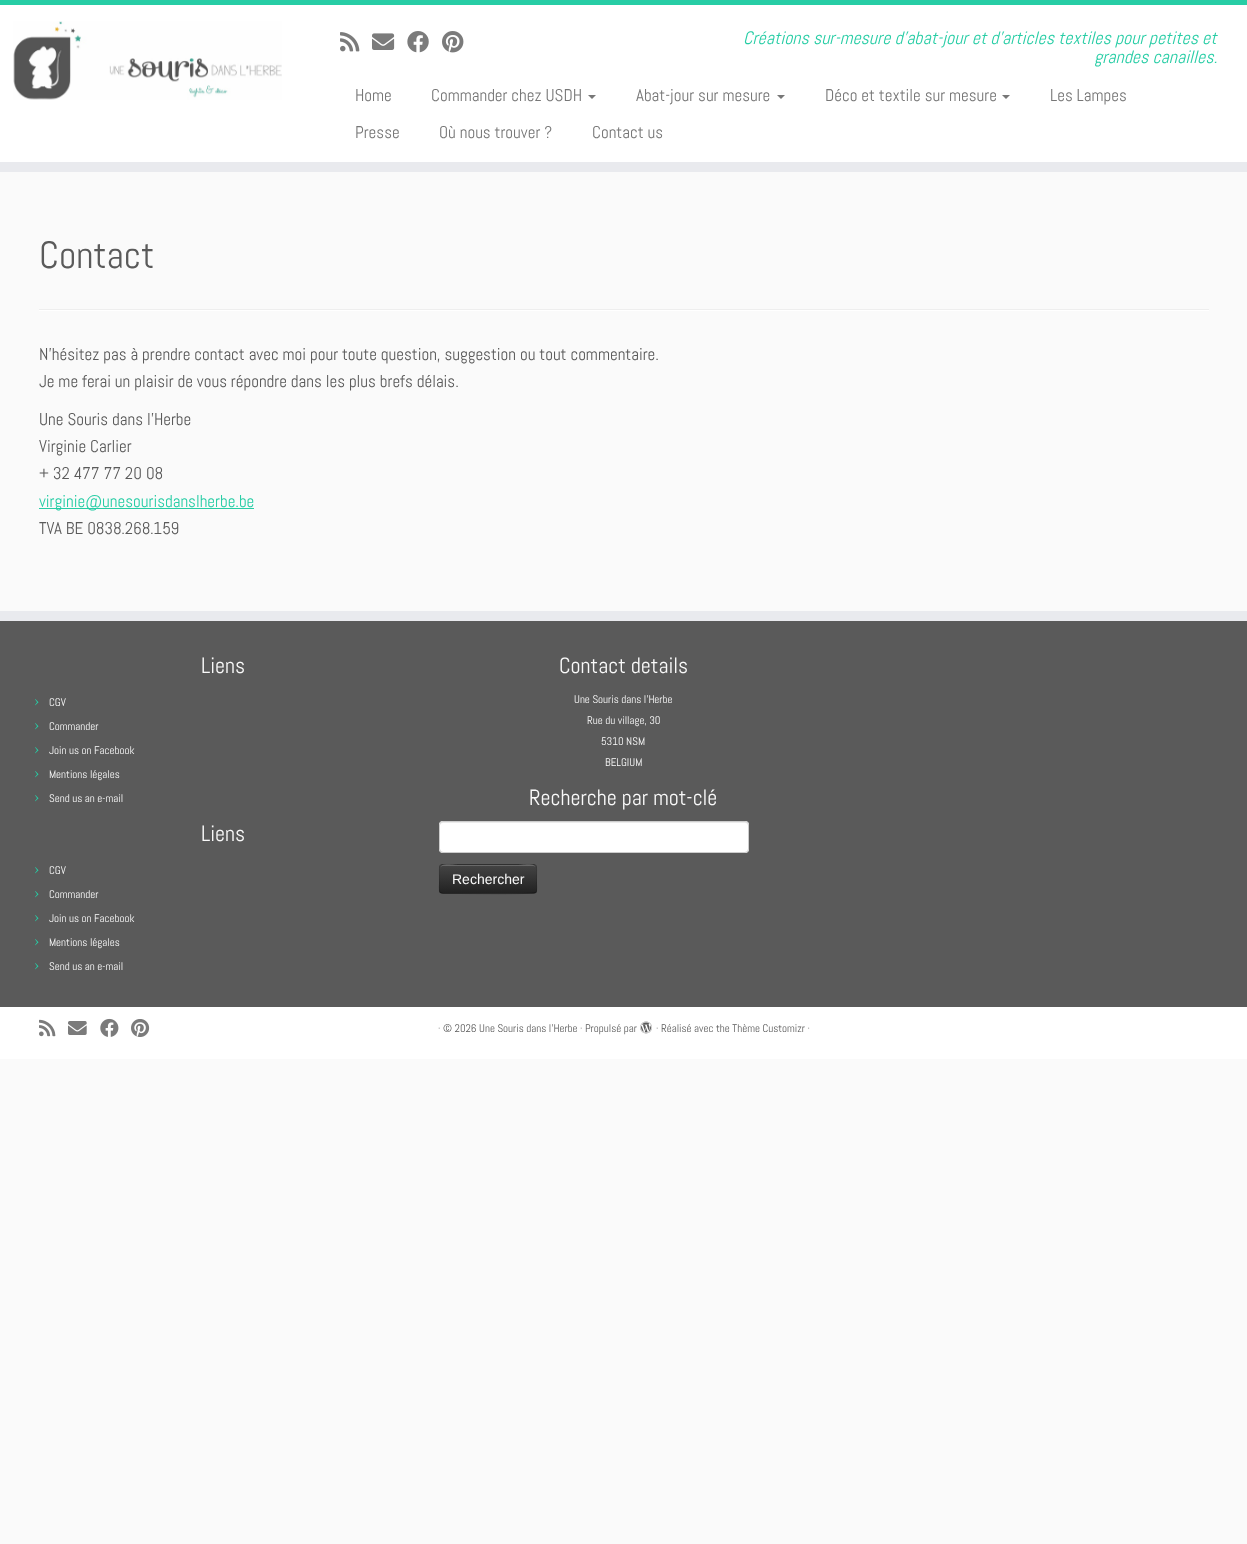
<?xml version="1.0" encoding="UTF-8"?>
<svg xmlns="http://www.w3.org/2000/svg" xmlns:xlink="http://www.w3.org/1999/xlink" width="1247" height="1544">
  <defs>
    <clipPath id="clip1"><rect x="439" y="864" width="98" height="30" rx="4" /></clipPath>
    <linearGradient id="g1" gradientUnits="userSpaceOnUse" x1="488" y1="865" x2="488" y2="893"><stop offset="0" stop-color="#444444" /><stop offset="1" stop-color="#222222" /></linearGradient>
  </defs>
  <rect width="100%" height="100%" fill="#fafafa" />
  <rect y="5" width="1247" height="157" fill="#ffffff" />
  <rect width="1247" height="5" fill="#27cda5" />
  <rect y="162" width="1247" height="10" fill="#e9eaee" />
  <image x="13" y="21" width="269" height="79" xlink:href="image1.png" />
  <image x="340" y="32" width="20" height="20" xlink:href="image2.png" />
  <image x="372" y="33" width="23" height="17" xlink:href="image3.png" />
  <image x="407" y="31" width="22" height="22" xlink:href="image4.png" />
  <image x="442" y="31" width="22" height="22" xlink:href="image5.png" />
  <path d="M 588 95 h 8 l -4 4 z" fill="#777777" />
  <path d="M 777 95 h 8 l -4 4 z" fill="#777777" />
  <path d="M 1002 95 h 8 l -4 4 z" fill="#777777" />
  <rect x="39" y="309" width="1170" height="1" fill="#eeeeee" />
  <rect x="39" y="310" width="1170" height="1" fill="#ffffff" />
  <rect x="39" y="508" width="215" height="1" fill="#27cda5" />
  <rect y="621" width="1247" height="386" fill="#5a5a5a" />
  <rect y="611" width="1247" height="10" fill="#e9eaee" />
  <rect x="439" y="821" width="310" height="32" rx="4" fill="#ffffff" />
  <path d="M 443 823 h 302 c 2 0 3 1 3 3 l -1 -3 l -1 -1 h -303 c -2 0 -3 2 -3 4 c 0 -2 1 -3 3 -3 z" fill="#ececec" />
  <rect x="439.5" y="821.5" width="309" height="31" rx="3.5" fill="none" stroke="#cccccc" />
  <rect x="439" y="864" width="98" height="30" rx="4" fill="#363636" />
  <g clip-path="url(#clip1)">
    <rect x="439" y="865" width="98" height="28" fill="url(#g1)" />
  </g>
  <path d="M 443 866 h 90 c 2 0 3 1 3 3 c 0 -8 -15 -4 -18 -4 h -60 c -3 0 -18 -4 -18 4 c 0 -2 1 -3 3 -3 z" fill="#ffffff" fill-opacity="0.2" />
  <path d="M 535.5 892.5 h -0.5 c -2 2 -68.5 1 -77 1 h -15 l -2.5 -1" fill="none" stroke="#000000" stroke-opacity="0.25" />
  <path d="M 440.5 892.5 c -2.5 -2.5 -1 -7 -1 -10 c 0 -21 -3.5 -18 18.5 -18 h 60 c 22 0 18.5 -3 18.5 18 c 0 3 1.5 7.5 -1 10" fill="none" stroke="#000000" stroke-opacity="0.1" />
  <rect y="1007" width="1247" height="52" fill="#ffffff" />
  <image x="39" y="1019" width="17" height="18" xlink:href="image6.png" />
  <image x="68" y="1021" width="19" height="14" xlink:href="image7.png" />
  <image x="100" y="1018" width="19" height="19" xlink:href="image8.png" />
  <image x="131" y="1019" width="19" height="18" xlink:href="image9.png" />
  <image x="640" y="1021" width="12" height="13" xlink:href="image10.png" />
  <text x="743" y="44" style="font-family: Abel; font-size: 18px; font-style: italic; fill: #27cda5">Créations sur-mesure d'abat-jour et d'articles textiles pour petites et</text>
  <text x="1094" y="63" style="font-family: Abel; font-size: 18px; font-style: italic; fill: #27cda5">grandes canailles.</text>
  <text x="355" y="101" style="font-family: Abel; font-size: 17px; fill: #777777">Home</text>
  <text x="431" y="101" style="font-family: Abel; font-size: 17px; fill: #777777">Commander chez USDH</text>
  <text x="636" y="101" style="font-family: Abel; font-size: 17px; fill: #777777">Abat-jour sur mesure</text>
  <text x="825" y="101" style="font-family: Abel; font-size: 17px; fill: #777777">Déco et textile sur mesure</text>
  <text x="1050" y="101" style="font-family: Abel; font-size: 17px; fill: #777777">Les Lampes</text>
  <text x="355" y="138" style="font-family: Abel; font-size: 17px; fill: #777777">Presse</text>
  <text x="439" y="138" style="font-family: Abel; font-size: 17px; fill: #777777">Où nous trouver ?</text>
  <text x="592" y="138" style="font-family: Abel; font-size: 17px; fill: #777777">Contact us</text>
  <text x="39" y="268" style="font-family: Abel; font-size: 38px; fill: #5a5a5a">Contact</text>
  <text x="39" y="360" style="font-family: Abel; font-size: 17px; fill: #5a5a5a">N’hésitez pas à prendre contact avec moi pour toute question, suggestion ou tout commentaire.</text>
  <text x="39" y="387" style="font-family: Abel; font-size: 17px; fill: #5a5a5a">Je me ferai un plaisir de vous répondre dans les plus brefs délais.</text>
  <text x="39" y="425" style="font-family: Abel; font-size: 17px; fill: #5a5a5a">Une Souris dans l’Herbe</text>
  <text x="39" y="452" style="font-family: Abel; font-size: 17px; fill: #5a5a5a">Virginie Carlier</text>
  <text x="39" y="479" style="font-family: Abel; font-size: 17px; fill: #5a5a5a">+ 32 477 77 20 08</text>
  <text x="39" y="507" style="font-family: Abel; font-size: 17px; fill: #27cda5">virginie@unesourisdanslherbe.be</text>
  <text x="39" y="534" style="font-family: Abel; font-size: 17px; fill: #5a5a5a">TVA BE 0838.268.159</text>
  <text x="201" y="673" style="font-family: Abel; font-size: 22px; fill: #fafafa">Liens</text>
  <text x="34" y="706" style="font-family: Abel; font-size: 17px; fill: #27cda5">›</text>
  <text x="49" y="706" style="font-family: Abel; font-size: 11px; fill: #fafafa">CGV</text>
  <text x="34" y="730" style="font-family: Abel; font-size: 17px; fill: #27cda5">›</text>
  <text x="49" y="730" style="font-family: Abel; font-size: 11px; fill: #fafafa">Commander</text>
  <text x="34" y="754" style="font-family: Abel; font-size: 17px; fill: #27cda5">›</text>
  <text x="49" y="754" style="font-family: Abel; font-size: 11px; fill: #fafafa">Join us on Facebook</text>
  <text x="34" y="778" style="font-family: Abel; font-size: 17px; fill: #27cda5">›</text>
  <text x="49" y="778" style="font-family: Abel; font-size: 11px; fill: #fafafa">Mentions légales</text>
  <text x="34" y="802" style="font-family: Abel; font-size: 17px; fill: #27cda5">›</text>
  <text x="49" y="802" style="font-family: Abel; font-size: 11px; fill: #fafafa">Send us an e-mail</text>
  <text x="201" y="841" style="font-family: Abel; font-size: 22px; fill: #fafafa">Liens</text>
  <text x="34" y="874" style="font-family: Abel; font-size: 17px; fill: #27cda5">›</text>
  <text x="49" y="874" style="font-family: Abel; font-size: 11px; fill: #fafafa">CGV</text>
  <text x="34" y="898" style="font-family: Abel; font-size: 17px; fill: #27cda5">›</text>
  <text x="49" y="898" style="font-family: Abel; font-size: 11px; fill: #fafafa">Commander</text>
  <text x="34" y="922" style="font-family: Abel; font-size: 17px; fill: #27cda5">›</text>
  <text x="49" y="922" style="font-family: Abel; font-size: 11px; fill: #fafafa">Join us on Facebook</text>
  <text x="34" y="946" style="font-family: Abel; font-size: 17px; fill: #27cda5">›</text>
  <text x="49" y="946" style="font-family: Abel; font-size: 11px; fill: #fafafa">Mentions légales</text>
  <text x="34" y="970" style="font-family: Abel; font-size: 17px; fill: #27cda5">›</text>
  <text x="49" y="970" style="font-family: Abel; font-size: 11px; fill: #fafafa">Send us an e-mail</text>
  <text x="559" y="673" style="font-family: Abel; font-size: 22px; fill: #fafafa">Contact details</text>
  <text x="574" y="703" style="font-family: Abel; font-size: 11px; fill: #fafafa">Une Souris dans l'Herbe</text>
  <text x="587" y="724" style="font-family: Abel; font-size: 11px; fill: #fafafa">Rue du village, 30</text>
  <text x="601" y="745" style="font-family: Abel; font-size: 11px; fill: #fafafa">5310 NSM</text>
  <text x="605" y="766" style="font-family: Abel; font-size: 11px; fill: #fafafa">BELGIUM</text>
  <text x="529" y="805" style="font-family: Abel; font-size: 22px; fill: #fafafa">Recherche par mot-clé</text>
  <text x="452" y="884" style="font-family: Liberation Sans; font-size: 14px; fill: #fafafa">Rechercher</text>
  <text x="438" y="1032" style="font-family: Abel; font-size: 11px; fill: #5a5a5a">· © 2026 Une Souris dans l'Herbe · Propulsé par</text>
  <text x="656" y="1032" style="font-family: Abel; font-size: 11px; fill: #5a5a5a">· Réalisé avec the Thème Customizr ·</text>
</svg>
